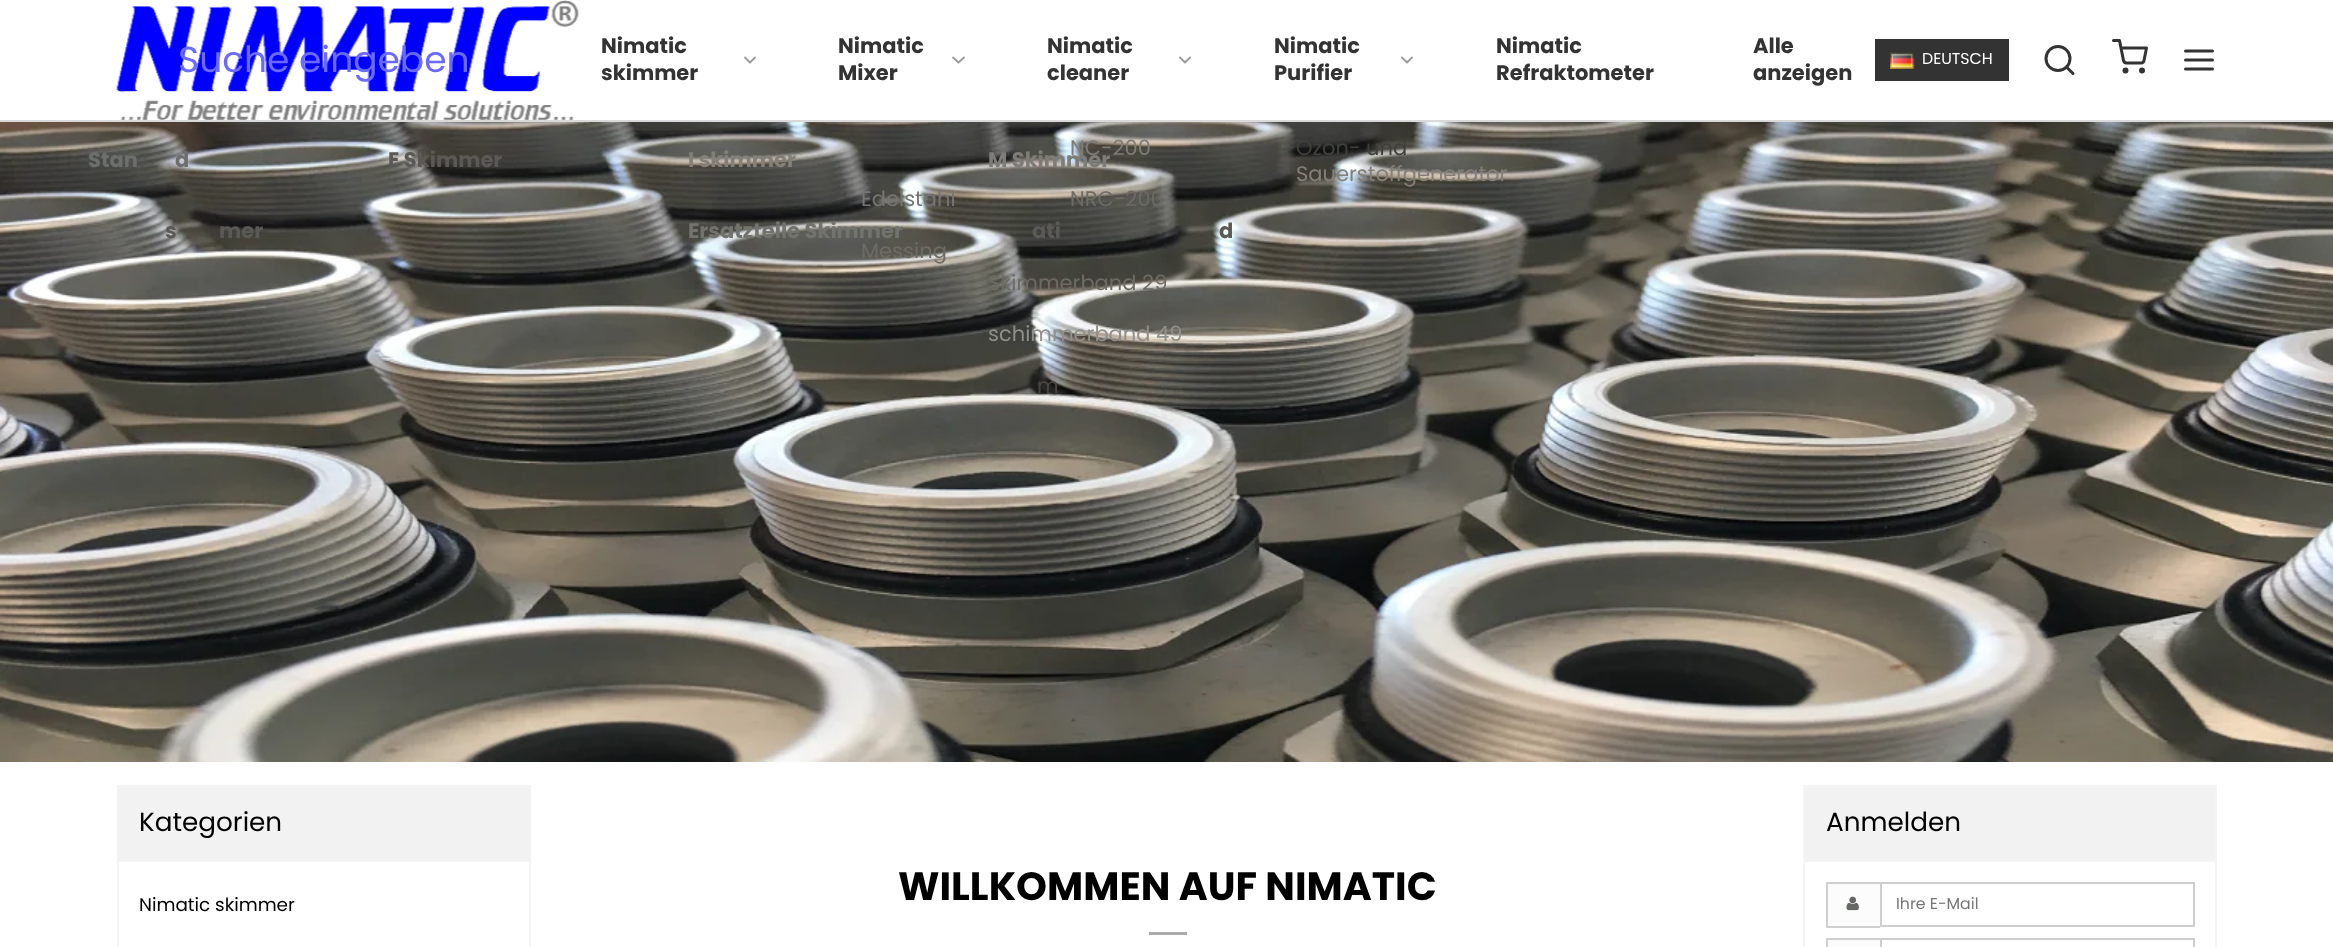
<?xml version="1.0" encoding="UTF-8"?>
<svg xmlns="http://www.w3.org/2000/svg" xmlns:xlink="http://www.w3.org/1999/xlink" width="2333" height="947">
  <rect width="100%" height="100%" fill="#ffffff" />
  <rect y="120" width="2333" height="2" fill="#d9d9d9" />
  <image x="116" y="0" width="463" height="120" xlink:href="image1.png" />
  <path d="M 745 57.5 l 5 5 l 5 -5" fill="none" stroke="#999999" stroke-width="1.8" stroke-linecap="round" stroke-linejoin="round" />
  <path d="M 953 57.5 l 5.5 5 l 5.5 -5" fill="none" stroke="#999999" stroke-width="1.8" stroke-linecap="round" stroke-linejoin="round" />
  <path d="M 1180 57.5 l 5 5 l 5 -5" fill="none" stroke="#999999" stroke-width="1.8" stroke-linecap="round" stroke-linejoin="round" />
  <path d="M 1402 57.5 l 5 5 l 5 -5" fill="none" stroke="#999999" stroke-width="1.8" stroke-linecap="round" stroke-linejoin="round" />
  <circle cx="2058" cy="58.5" r="12" fill="none" stroke="#333333" stroke-width="3" />
  <path d="M 2073 73.5 l -6.5 -6.5" fill="none" stroke="#333333" stroke-width="3" stroke-linecap="round" stroke-linejoin="round" />
  <rect x="1875" y="39" width="134" height="42" fill="#333333" />
  <image x="1890" y="52" width="25" height="17" xlink:href="image2.png" />
  <path d="M 2113.5 40.5 h 6 l 4 20 c 0.5 1.5 1.5 2.5 3 2.5 h 14.5 c 1.5 0 3 -1 3 -2.5 l 2.5 -12.5 h -25.5" fill="none" stroke="#333333" stroke-width="3" stroke-linecap="round" stroke-linejoin="round" />
  <circle cx="2125.5" cy="70.5" r="1.5" fill="none" stroke="#333333" stroke-width="3" />
  <circle cx="2142" cy="70.5" r="1.5" fill="none" stroke="#333333" stroke-width="3" />
  <path d="M 2185.5 60 h 27 m -27 -9 h 27 m -27 18 h 27" fill="none" stroke="#333333" stroke-width="3" stroke-linecap="round" stroke-linejoin="round" />
  <image x="0" y="122" width="2333" height="640" xlink:href="image3.png" />
  <rect x="118" y="786" width="412" height="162" fill="none" stroke="#f4f4f4" stroke-width="2" />
  <rect x="119" y="787" width="410" height="73" fill="#f2f2f2" />
  <rect x="119" y="860" width="411" height="2" fill="#f4f4f4" />
  <rect x="1149" y="932" width="38" height="3" fill="#aaaaaa" />
  <rect x="1804" y="786" width="412" height="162" fill="none" stroke="#f4f4f4" stroke-width="2" />
  <rect x="1805" y="787" width="410" height="73" fill="#f2f2f2" />
  <rect x="1805" y="860" width="411" height="2" fill="#f4f4f4" />
  <rect x="1828" y="884" width="52" height="42" fill="#fcfcfc" />
  <rect x="1826" y="882" width="54" height="2" fill="#cfcfcf" />
  <rect x="1826" y="926" width="54" height="2" fill="#cfcfcf" />
  <rect x="1826" y="882" width="2" height="45" fill="#cfcfcf" />
  <image x="1846" y="896" width="13" height="15" xlink:href="image4.png" />
  <rect x="1881" y="883" width="313" height="43" fill="none" stroke="#cfcfcf" stroke-width="2" />
  <rect x="1827" y="940" width="53" height="7" fill="#fcfcfc" />
  <rect x="1826" y="938" width="54" height="2" fill="#cfcfcf" />
  <rect x="1826" y="938" width="2" height="9" fill="#cfcfcf" />
  <rect x="1881" y="939" width="313" height="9" fill="none" stroke="#cfcfcf" stroke-width="2" />
  <text x="601" y="53" style="font-family: Poppins; font-size: 21px; font-weight: bold; fill: #333333">Nimatic</text>
  <text x="601" y="80" style="font-family: Poppins; font-size: 21px; font-weight: bold; fill: #333333">skimmer</text>
  <text x="88" y="167" style="font-family: Poppins; font-size: 21px; font-weight: bold; fill: #6d6f6d">Stan</text>
  <text x="175" y="167" style="font-family: Poppins; font-size: 21px; font-weight: bold; fill: #6d6f6d">d</text>
  <text x="388" y="167" style="font-family: Poppins; font-size: 21px; font-weight: bold; fill: #5b5955">E Skimmer</text>
  <text x="688" y="167" style="font-family: Poppins; font-size: 21px; font-weight: bold; fill: #848078">I skimmer</text>
  <text x="988" y="167" style="font-family: Poppins; font-size: 21px; font-weight: bold; fill: #7d7c78">M Skimmer</text>
  <text x="165" y="238" style="font-family: Poppins; font-size: 21px; font-weight: bold; fill: #5b5955">s</text>
  <text x="219" y="238" style="font-family: Poppins; font-size: 21px; font-weight: bold; fill: #5b5955">mer</text>
  <text x="688" y="238" style="font-family: Poppins; font-size: 21px; font-weight: bold; fill: #73736e">Ersatzteile Skimmer</text>
  <text x="1032" y="238" style="font-family: Poppins; font-size: 21px; font-weight: bold; fill: #5b5955">ati</text>
  <text x="1219" y="238" style="font-family: Poppins; font-size: 21px; font-weight: bold; fill: #5b5955">d</text>
  <text x="988" y="290" style="font-family: Poppins; font-size: 21px; fill: #6d6b64">Skimmerband 29</text>
  <text x="988" y="341" style="font-family: Poppins; font-size: 21px; fill: #918f89">schimmerband 49</text>
  <text x="1037" y="393" style="font-family: Poppins; font-size: 21px; fill: #49463f">m</text>
  <text x="838" y="53" style="font-family: Poppins; font-size: 21px; font-weight: bold; fill: #333333">Nimatic</text>
  <text x="838" y="80" style="font-family: Poppins; font-size: 21px; font-weight: bold; fill: #333333">Mixer</text>
  <text x="861" y="206" style="font-family: Poppins; font-size: 21px; fill: #757575">Edelstahl</text>
  <text x="861" y="258" style="font-family: Poppins; font-size: 21px; fill: #6d6b64">Messing</text>
  <text x="1047" y="53" style="font-family: Poppins; font-size: 21px; font-weight: bold; fill: #333333">Nimatic</text>
  <text x="1047" y="80" style="font-family: Poppins; font-size: 21px; font-weight: bold; fill: #333333">cleaner</text>
  <text x="1070" y="155" style="font-family: Poppins; font-size: 21px; fill: #7d7c78">NC-200</text>
  <text x="1070" y="206" style="font-family: Poppins; font-size: 21px; fill: #6d6b64">NRC-200</text>
  <text x="1274" y="53" style="font-family: Poppins; font-size: 21px; font-weight: bold; fill: #333333">Nimatic</text>
  <text x="1274" y="80" style="font-family: Poppins; font-size: 21px; font-weight: bold; fill: #333333">Purifier</text>
  <text x="1296" y="155" style="font-family: Poppins; font-size: 21px; fill: #3f3f3c">Ozon- und</text>
  <text x="1296" y="181" style="font-family: Poppins; font-size: 21px; fill: #848078">Sauerstoffgenerator</text>
  <text x="1496" y="53" style="font-family: Poppins; font-size: 21px; font-weight: bold; fill: #333333">Nimatic</text>
  <text x="1496" y="80" style="font-family: Poppins; font-size: 21px; font-weight: bold; fill: #333333">Refraktometer</text>
  <text x="1753" y="53" style="font-family: Poppins; font-size: 21px; font-weight: bold; fill: #333333">Alle</text>
  <text x="1753" y="80" style="font-family: Poppins; font-size: 21px; font-weight: bold; fill: #333333">anzeigen</text>
  <text x="178" y="72" style="font-family: Poppins; font-size: 36px; fill: #6a6aff">Suche eingeben</text>
  <text x="1922" y="64" style="font-family: Poppins; font-size: 15.75px; fill: #ffffff">DEUTSCH</text>
  <text x="139" y="831" style="font-family: Poppins; font-size: 26.25px; fill: #000000">Kategorien</text>
  <text x="139" y="911" style="font-family: Poppins; font-size: 18.4px; fill: #000000">Nimatic skimmer</text>
  <text x="898" y="900" style="font-family: Poppins; font-size: 39.4px; font-weight: bold; fill: #000000">WILLKOMMEN AUF NIMATIC</text>
  <text x="1826" y="831" style="font-family: Poppins; font-size: 26.25px; fill: #000000">Anmelden</text>
  <text x="1896" y="909" style="font-family: Poppins; font-size: 15.75px; fill: #757575">Ihre E-Mail</text>
</svg>
